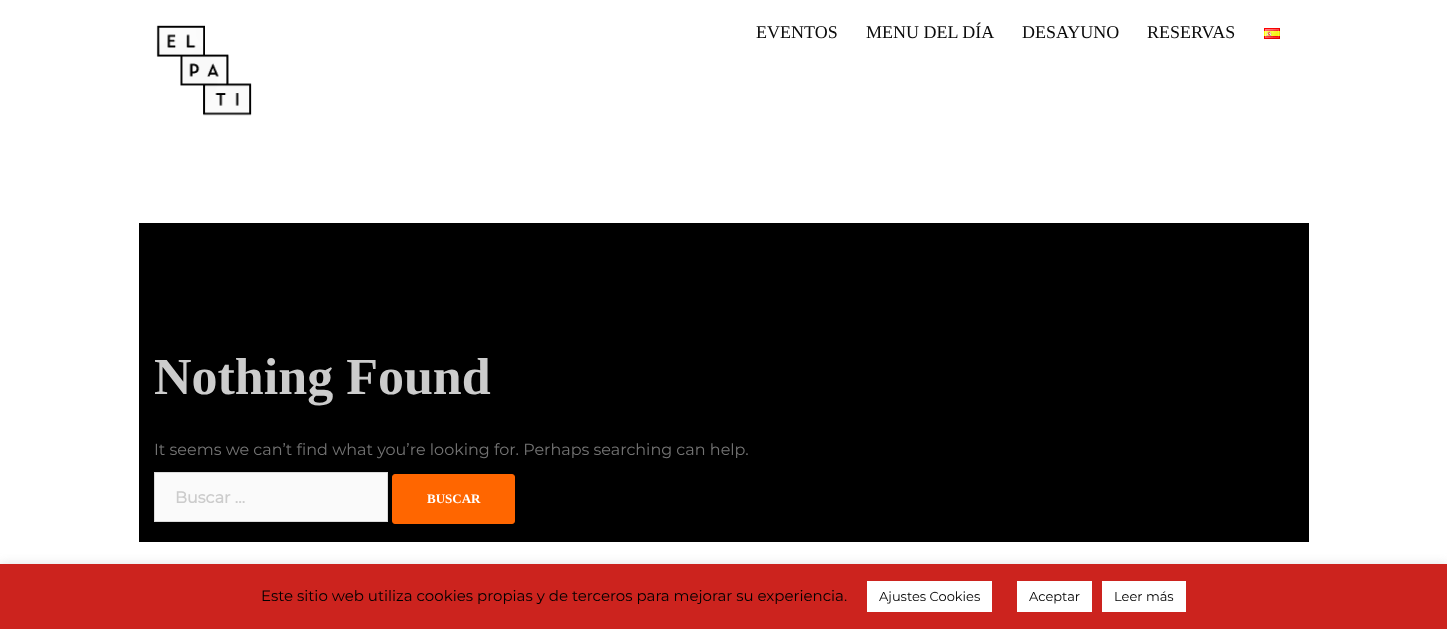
<?xml version="1.0" encoding="UTF-8"?>
<svg xmlns="http://www.w3.org/2000/svg" xmlns:xlink="http://www.w3.org/1999/xlink" width="1447" height="629">
  <rect width="100%" height="100%" fill="#ffffff" />
  <image x="156" y="25" width="96" height="91" xlink:href="image1.png" />
  <image x="1264" y="28" width="16" height="11" xlink:href="image2.png" />
  <rect x="139" y="223" width="1170" height="319" fill="#000000" />
  <rect x="154.5" y="472.5" width="233" height="49" fill="#fafafa" stroke="#dbdbdb" />
  <rect x="392.5" y="474.5" width="122" height="49" rx="2.5" fill="#ff6600" stroke="#ff6600" />
  <rect y="563" width="1447" height="65" fill="#acabab" fill-opacity="0.3" filter="blur(5px)" />
  <rect y="564" width="1447" height="65" fill="#cc231e" />
  <rect x="867" y="581" width="125" height="31" fill="#ffffff" />
  <rect x="1017" y="581" width="75" height="31" fill="#ffffff" />
  <rect x="1102" y="581" width="84" height="31" fill="#ffffff" />
  <text x="756" y="38" style="font-family: Liberation Serif; font-size: 18px; fill: #0a0a0a">EVENTOS</text>
  <text x="866" y="38" style="font-family: Liberation Serif; font-size: 18px; fill: #0a0a0a">MENU DEL DÍA</text>
  <text x="1022" y="38" style="font-family: Liberation Serif; font-size: 18px; fill: #0a0a0a">DESAYUNO</text>
  <text x="1147" y="38" style="font-family: Liberation Serif; font-size: 18px; fill: #0a0a0a">RESERVAS</text>
  <text x="154" y="394" style="font-family: Liberation Serif; font-size: 52px; font-weight: bold; fill: #cccccc">Nothing Found</text>
  <text x="154" y="455" style="font-family: Montserrat; font-size: 16px; font-weight: 100; fill: #747474">It seems we can’t find what you’re looking for. Perhaps searching can help.</text>
  <text x="175" y="503" style="font-family: Montserrat; font-size: 16px; font-weight: bold; fill: #cccccc">Buscar …</text>
  <text x="427" y="503" style="font-family: Liberation Serif; font-size: 13px; font-weight: bold; fill: #ffffff">BUSCAR</text>
  <text x="261" y="601" style="font-family: Montserrat; font-size: 15px; font-weight: 100; fill: #000000">Este sitio web utiliza cookies propias y de terceros para mejorar su experiencia.</text>
  <text x="879" y="601" style="font-family: Montserrat; font-size: 13px; font-weight: 100; fill: #000000">Ajustes Cookies</text>
  <text x="1029" y="601" style="font-family: Montserrat; font-size: 13px; font-weight: 100; fill: #000000">Aceptar</text>
  <text x="1114" y="601" style="font-family: Montserrat; font-size: 13px; font-weight: 100; fill: #000000">Leer más</text>
</svg>
